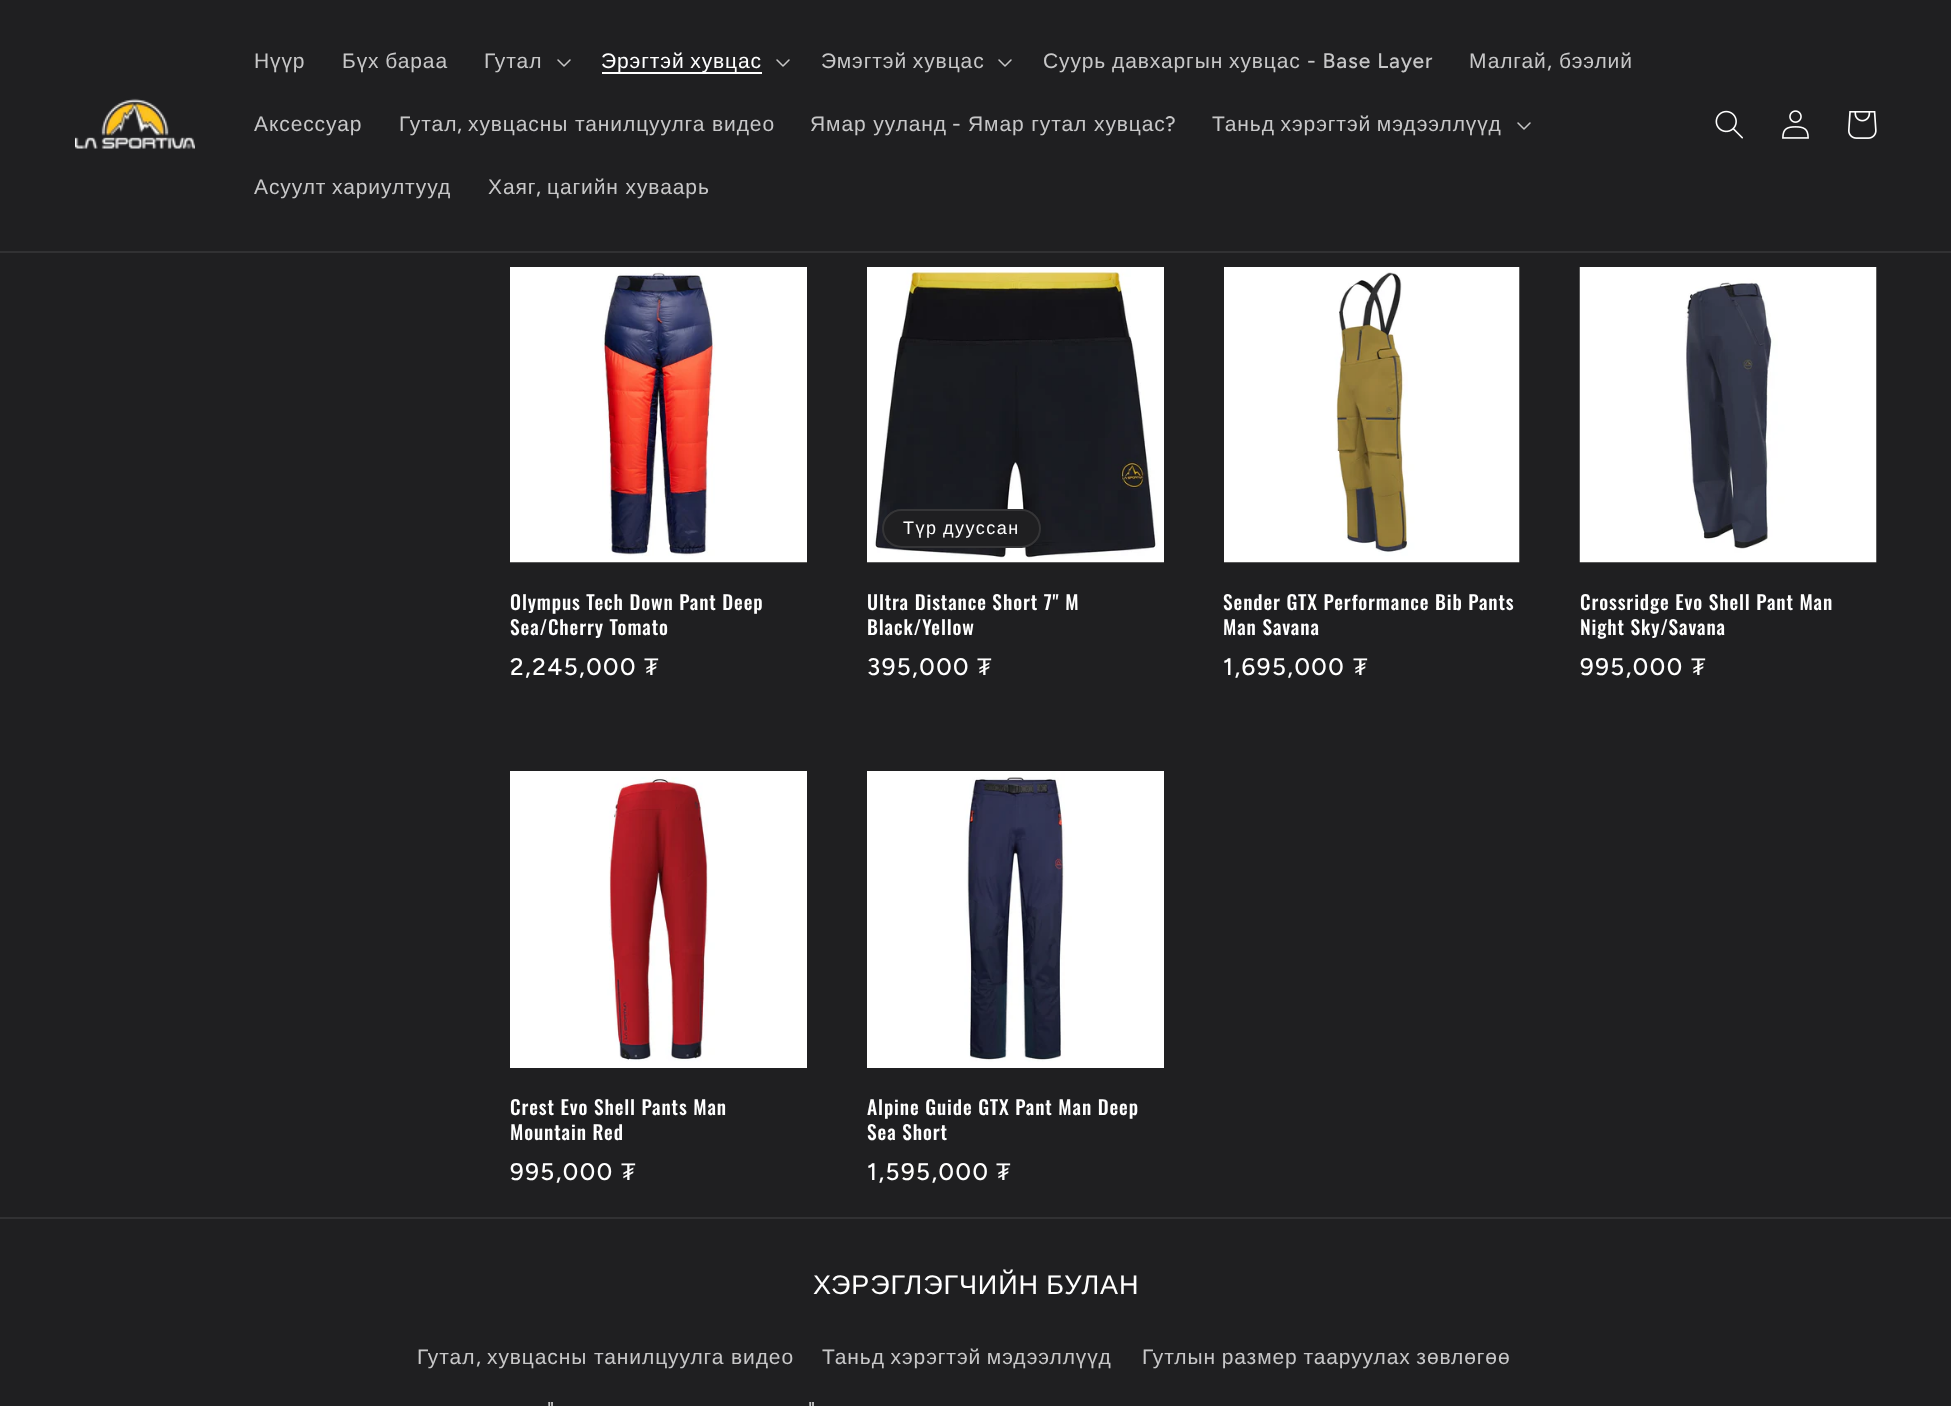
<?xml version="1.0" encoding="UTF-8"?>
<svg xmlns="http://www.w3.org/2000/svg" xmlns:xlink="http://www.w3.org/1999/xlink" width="1951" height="1406">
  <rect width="100%" height="100%" fill="#1f1f21" />
  <rect y="251" width="1951" height="2" fill="#313133" />
  <image x="75" y="98" width="120" height="51" xlink:href="image1.png" />
  <image x="557" y="59" width="14" height="8" xlink:href="image2.png" />
  <rect x="602" y="72" width="160" height="2" fill="#ffffff" />
  <image x="776" y="59" width="14" height="8" xlink:href="image2.png" />
  <image x="998" y="59" width="14" height="8" xlink:href="image2.png" />
  <image x="1517" y="122" width="14" height="8" xlink:href="image2.png" />
  <image x="1715" y="110" width="28" height="29" xlink:href="image3.png" />
  <image x="1782" y="110" width="27" height="29" xlink:href="image4.png" />
  <image x="1848" y="111" width="29" height="28" xlink:href="image5.png" />
  <rect x="510" y="562" width="297" height="1" fill="#262626" />
  <image x="510" y="267" width="297" height="296" xlink:href="image6.png" />
  <rect x="867" y="562" width="297" height="1" fill="#262626" />
  <image x="867" y="267" width="297" height="296" xlink:href="image7.png" />
  <rect x="882" y="509" width="159" height="39" rx="19.5" fill="#1f1f21" />
  <rect x="883" y="510" width="157" height="37" rx="18.5" fill="none" stroke="#ffffff" stroke-opacity="0.1" stroke-width="2" />
  <rect x="1224" y="267" width="296" height="296" fill="#262626" />
  <image x="1224" y="267" width="296" height="296" xlink:href="image8.png" />
  <rect x="1580" y="267" width="297" height="296" fill="#262626" />
  <image x="1579" y="267" width="298" height="296" xlink:href="image9.png" />
  <image x="510" y="771" width="297" height="297" xlink:href="image10.png" />
  <image x="867" y="771" width="297" height="297" xlink:href="image11.png" />
  <rect y="1217" width="1951" height="2" fill="#313133" />
  <text x="254" y="68" style="font-family: Liberation Sans; font-size: 21px; letter-spacing: 0.9px; fill: #c7c7c8">Нүүр</text>
  <text x="342" y="68" word-spacing="-1" style="font-family: Liberation Sans; font-size: 21px; letter-spacing: 0.9px; fill: #c7c7c8">Бүх бараа</text>
  <text x="484" y="68" style="font-family: Liberation Sans; font-size: 21px; letter-spacing: 0.9px; fill: #c7c7c8">Гутал</text>
  <text x="601" y="68" word-spacing="-1" style="font-family: Liberation Sans; font-size: 21px; letter-spacing: 0.9px; fill: #ffffff">Эрэгтэй хувцас</text>
  <text x="821" y="68" word-spacing="-1" style="font-family: Liberation Sans; font-size: 21px; letter-spacing: 0.9px; fill: #c7c7c8">Эмэгтэй хувцас</text>
  <text x="1043" y="68" style="font-family: Liberation Sans; font-size: 21px; letter-spacing: 0.9px; fill: #c7c7c8">Суурь</text>
  <text x="1112" y="68" style="font-family: Liberation Sans; font-size: 21px; letter-spacing: 0.9px; fill: #c7c7c8">давхаргын</text>
  <text x="1229" y="68" style="font-family: Liberation Sans; font-size: 21px; letter-spacing: 0.9px; fill: #c7c7c8">хувцас</text>
  <text x="1307" y="68" style="font-family: Figtree; font-size: 21px; font-weight: 500; letter-spacing: 0.9px; fill: #c7c7c8">- Base Layer</text>
  <text x="1469" y="68" style="font-family: Liberation Sans; font-size: 21px; letter-spacing: 0.9px; fill: #c7c7c8">Малгай</text>
  <text x="1547" y="68" style="font-family: Figtree; font-size: 21px; font-weight: 500; letter-spacing: 0.9px; fill: #c7c7c8">,</text>
  <text x="1559" y="68" style="font-family: Liberation Sans; font-size: 21px; letter-spacing: 0.9px; fill: #c7c7c8">бээлий</text>
  <text x="254" y="131" style="font-family: Liberation Sans; font-size: 21px; letter-spacing: 0.9px; fill: #c7c7c8">Аксессуар</text>
  <text x="399" y="131" style="font-family: Liberation Sans; font-size: 21px; letter-spacing: 0.9px; fill: #c7c7c8">Гутал</text>
  <text x="457" y="131" style="font-family: Figtree; font-size: 21px; font-weight: 500; letter-spacing: 0.9px; fill: #c7c7c8">,</text>
  <text x="468" y="131" style="font-family: Liberation Sans; font-size: 21px; letter-spacing: 0.9px; fill: #c7c7c8">хувцасны танилцуулга видео</text>
  <text x="810" y="131" style="font-family: Liberation Sans; font-size: 21px; letter-spacing: 0.9px; fill: #c7c7c8">Ямар ууланд</text>
  <text x="952" y="131" style="font-family: Figtree; font-size: 21px; font-weight: 500; letter-spacing: 0.9px; fill: #c7c7c8">-</text>
  <text x="968" y="131" style="font-family: Liberation Sans; font-size: 21px; letter-spacing: 0.9px; fill: #c7c7c8">Ямар гутал хувцас</text>
  <text x="1165" y="131" style="font-family: Figtree; font-size: 21px; font-weight: 500; letter-spacing: 0.9px; fill: #c7c7c8">?</text>
  <text x="1212" y="131" word-spacing="-1" style="font-family: Liberation Sans; font-size: 21px; letter-spacing: 0.9px; fill: #c7c7c8">Таньд хэрэгтэй мэдээллүүд</text>
  <text x="254" y="194" word-spacing="-1" style="font-family: Liberation Sans; font-size: 21px; letter-spacing: 0.9px; fill: #c7c7c8">Асуулт хариултууд</text>
  <text x="488" y="194" style="font-family: Liberation Sans; font-size: 21px; letter-spacing: 0.9px; fill: #c7c7c8">Хаяг</text>
  <text x="536" y="194" style="font-family: Figtree; font-size: 21px; font-weight: 500; letter-spacing: 0.9px; fill: #c7c7c8">,</text>
  <text x="547" y="194" style="font-family: Liberation Sans; font-size: 21px; letter-spacing: 0.9px; fill: #c7c7c8">цагийн хуваарь</text>
  <text x="510" y="610" style="font-family: Oswald; font-size: 19.5px; font-weight: 500; letter-spacing: 0.9px; fill: #ffffff">Olympus Tech Down Pant Deep</text>
  <text x="510" y="635" style="font-family: Oswald; font-size: 19.5px; font-weight: 500; letter-spacing: 0.9px; fill: #ffffff">Sea/Cherry Tomato</text>
  <text x="510" y="675" style="font-family: Figtree; font-size: 24px; font-weight: 500; letter-spacing: 1.5px; fill: #ffffff">2,245,000</text>
  <text x="644" y="675" style="font-family: Liberation Sans; font-size: 24px; letter-spacing: 1.5px; fill: #ffffff">₮</text>
  <text x="903" y="534" word-spacing="-1" style="font-family: Liberation Sans; font-size: 18px; letter-spacing: 1.5px; fill: #ffffff">Түр дууссан</text>
  <text x="867" y="610" style="font-family: Oswald; font-size: 19.5px; font-weight: 500; letter-spacing: 0.9px; fill: #ffffff">Ultra Distance Short 7" M</text>
  <text x="867" y="635" style="font-family: Oswald; font-size: 19.5px; font-weight: 500; letter-spacing: 0.9px; fill: #ffffff">Black/Yellow</text>
  <text x="867" y="675" style="font-family: Figtree; font-size: 24px; font-weight: 500; letter-spacing: 1.5px; fill: #ffffff">395,000</text>
  <text x="977" y="675" style="font-family: Liberation Sans; font-size: 24px; letter-spacing: 1.5px; fill: #ffffff">₮</text>
  <text x="1223" y="610" style="font-family: Oswald; font-size: 19.5px; font-weight: 500; letter-spacing: 0.9px; fill: #ffffff">Sender GTX Performance Bib Pants</text>
  <text x="1223" y="635" style="font-family: Oswald; font-size: 19.5px; font-weight: 500; letter-spacing: 0.9px; fill: #ffffff">Man Savana</text>
  <text x="1223" y="675" style="font-family: Figtree; font-size: 24px; font-weight: 500; letter-spacing: 1.5px; fill: #ffffff">1,695,000</text>
  <text x="1353" y="675" style="font-family: Liberation Sans; font-size: 24px; letter-spacing: 1.5px; fill: #ffffff">₮</text>
  <text x="1580" y="610" style="font-family: Oswald; font-size: 19.5px; font-weight: 500; letter-spacing: 0.9px; fill: #ffffff">Crossridge Evo Shell Pant Man</text>
  <text x="1580" y="635" style="font-family: Oswald; font-size: 19.5px; font-weight: 500; letter-spacing: 0.9px; fill: #ffffff">Night Sky/Savana</text>
  <text x="1580" y="675" style="font-family: Figtree; font-size: 24px; font-weight: 500; letter-spacing: 1.5px; fill: #ffffff">995,000</text>
  <text x="1691" y="675" style="font-family: Liberation Sans; font-size: 24px; letter-spacing: 1.5px; fill: #ffffff">₮</text>
  <text x="510" y="1115" style="font-family: Oswald; font-size: 19.5px; font-weight: 500; letter-spacing: 0.9px; fill: #ffffff">Crest Evo Shell Pants Man</text>
  <text x="510" y="1140" style="font-family: Oswald; font-size: 19.5px; font-weight: 500; letter-spacing: 0.9px; fill: #ffffff">Mountain Red</text>
  <text x="510" y="1180" style="font-family: Figtree; font-size: 24px; font-weight: 500; letter-spacing: 1.5px; fill: #ffffff">995,000</text>
  <text x="621" y="1180" style="font-family: Liberation Sans; font-size: 24px; letter-spacing: 1.5px; fill: #ffffff">₮</text>
  <text x="867" y="1115" style="font-family: Oswald; font-size: 19.5px; font-weight: 500; letter-spacing: 0.9px; fill: #ffffff">Alpine Guide GTX Pant Man Deep</text>
  <text x="867" y="1140" style="font-family: Oswald; font-size: 19.5px; font-weight: 500; letter-spacing: 0.9px; fill: #ffffff">Sea Short</text>
  <text x="867" y="1180" style="font-family: Figtree; font-size: 24px; font-weight: 500; letter-spacing: 1.5px; fill: #ffffff">1,595,000</text>
  <text x="996" y="1180" style="font-family: Liberation Sans; font-size: 24px; letter-spacing: 1.5px; fill: #ffffff">₮</text>
  <text x="813" y="1294" word-spacing="-1" style="font-family: Liberation Sans; font-size: 27px; letter-spacing: 0.9px; fill: #ffffff">ХЭРЭГЛЭГЧИЙН БУЛАН</text>
  <text x="417" y="1364" style="font-family: Liberation Sans; font-size: 21px; letter-spacing: 0.9px; fill: #c7c7c8">Гутал</text>
  <text x="476" y="1364" style="font-family: Figtree; font-size: 21px; font-weight: 500; letter-spacing: 0.9px; fill: #c7c7c8">,</text>
  <text x="487" y="1364" style="font-family: Liberation Sans; font-size: 21px; letter-spacing: 0.9px; fill: #c7c7c8">хувцасны танилцуулга видео</text>
  <text x="822" y="1364" word-spacing="-1" style="font-family: Liberation Sans; font-size: 21px; letter-spacing: 0.9px; fill: #c7c7c8">Таньд хэрэгтэй мэдээллүүд</text>
  <text x="1142" y="1364" word-spacing="-1" style="font-family: Liberation Sans; font-size: 21px; letter-spacing: 0.9px; fill: #c7c7c8">Гутлын размер тааруулах зөвлөгөө</text>
  <text x="547" y="1417" style="font-family: Figtree; font-size: 21px; font-weight: 500; letter-spacing: 0.9px; fill: #c7c7c8">"</text>
  <text x="808" y="1417" style="font-family: Figtree; font-size: 21px; font-weight: 500; letter-spacing: 0.9px; fill: #c7c7c8">"</text>
</svg>
